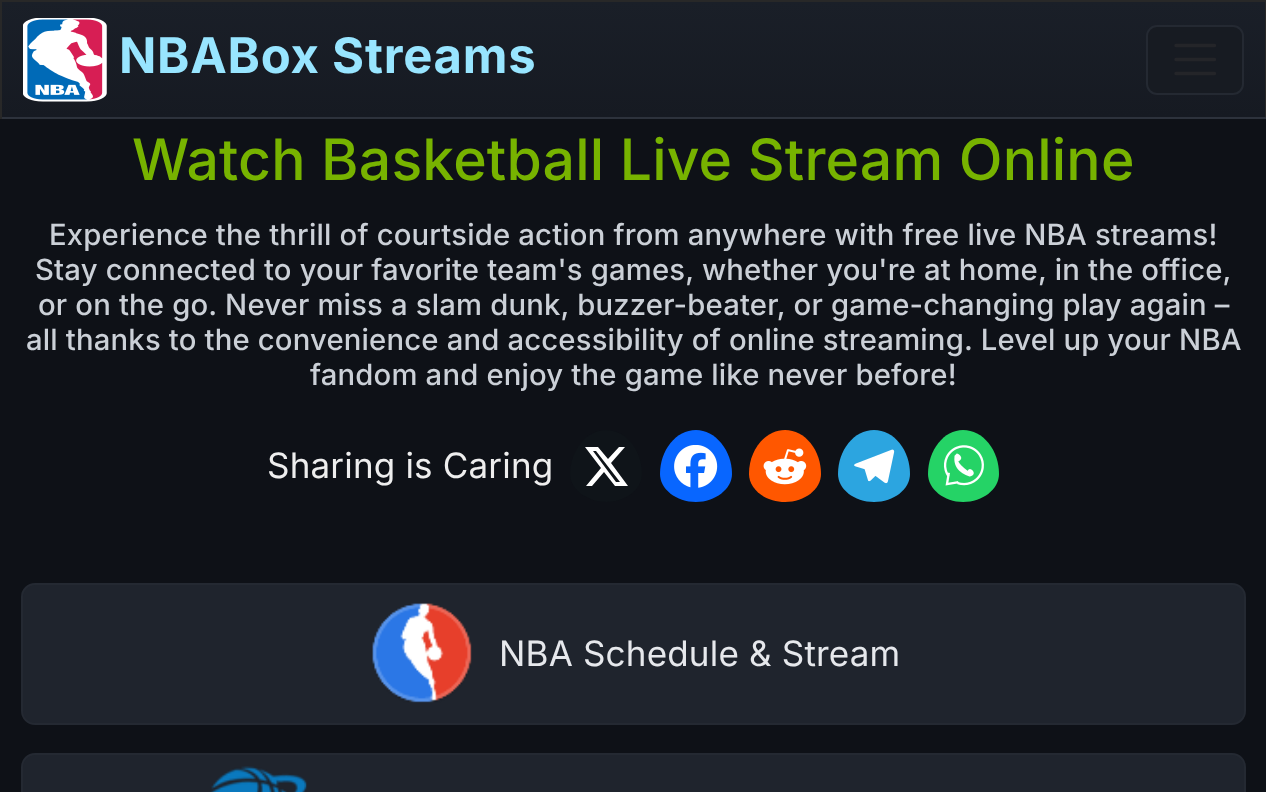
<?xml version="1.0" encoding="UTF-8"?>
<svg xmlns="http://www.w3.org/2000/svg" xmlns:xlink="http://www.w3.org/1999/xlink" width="1266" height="792">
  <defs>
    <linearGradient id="g1" gradientUnits="userSpaceOnUse" x1="634" y1="1.7" x2="634" y2="117"><stop offset="0" stop-color="#1a1f28" /><stop offset="1" stop-color="#161a22" /></linearGradient>
  </defs>
  <rect width="100%" height="100%" fill="#0e1117" />
  <rect x="2" y="2" width="1263" height="115" fill="url(#g1)" />
  <rect width="1266" height="2" fill="#282828" />
  <rect x="1265" width="1" height="119" fill="#282828" />
  <rect y="117" width="1266" height="2" fill="#2d323c" />
  <rect width="2" height="119" fill="#282828" />
  <image x="23" y="18" width="84" height="84" xlink:href="image1.png" />
  <rect x="1147" y="26" width="96" height="68" rx="10" fill="#171b22" stroke="#242932" stroke-width="2" />
  <path d="M 1176 45.5 h 38.5 m -38.5 14 h 38.5 m -38.5 14 h 38.5" fill="none" stroke="#242529" stroke-width="3.5" stroke-linecap="round" />
  <path d="M 606 430 c 20 0 36 20 36 44 c 0 15 -16 28 -36 28 c -19 0 -36 -13 -36 -28 c 0 -24 17 -44 36 -44 z" fill="#0f1419" />
  <path d="M 619 447 h 6 l -14 16 l 17 23 h -13 l -11 -14 l -12 14 h -6 l 15 -18 l -16 -21 h 13 l 10 12 z m -3 35 h 4 l -24 -31 h -3 z" fill="#ffffff" />
  <path d="M 696 430 c 19 0 36 20 36 44 c 0 15 -17 28 -36 28 c -20 0 -36 -13 -36 -28 c 0 -24 16 -44 36 -44 z" fill="#0866ff" />
  <image x="674" y="445" width="44" height="43" xlink:href="image2.png" />
  <path d="M 785 430 c 20 0 36 20 36 44 c 0 15 -16 28 -36 28 c -20 0 -36 -13 -36 -28 c 0 -24 16 -44 36 -44 z" fill="#ff5700" />
  <image x="763" y="448" width="44" height="37" xlink:href="image3.png" />
  <path d="M 874 430 c 20 0 36 20 36 44 c 0 15 -16 28 -36 28 c -20 0 -36 -13 -36 -28 c 0 -24 16 -44 36 -44 z" fill="#2ca5e0" />
  <image x="854" y="449" width="41" height="35" xlink:href="image4.png" />
  <path d="M 963 430 c 20 0 36 20 36 44 c 0 15 -16 28 -36 28 c -19 0 -35 -13 -35 -28 c 0 -24 16 -44 35 -44 z" fill="#25d366" />
  <image x="943" y="445" width="41" height="41" xlink:href="image5.png" />
  <rect x="22" y="584" width="1223" height="140" rx="13" fill="#1f242d" stroke="#242932" stroke-width="2" />
  <image x="372" y="603" width="100" height="100" xlink:href="image6.png" />
  <rect x="22" y="754" width="1223" height="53" rx="13" fill="#1f242d" stroke="#242932" stroke-width="2" />
  <image x="210" y="766" width="97" height="26" xlink:href="image7.png" />
  <text x="119" y="73" style="font-family: Inter; font-size: 49px; font-weight: bold; letter-spacing: 0.75px; fill: #98e5ff">NBABox Streams</text>
  <text x="132" y="180" style="font-family: Inter; font-size: 57.1px; font-weight: 500; letter-spacing: 0.18px; fill: #77b300">Watch Basketball Live Stream Online</text>
  <text x="49" y="245" style="font-family: Inter; font-size: 29.25px; font-weight: 500; letter-spacing: 0.18px; fill: #cbd0d7">Experience the thrill of courtside action from anywhere with free live NBA streams!</text>
  <text x="35" y="280" style="font-family: Inter; font-size: 29.25px; font-weight: 500; letter-spacing: 0.18px; fill: #cbd0d7">Stay connected to your favorite team's games, whether you're at home, in the office,</text>
  <text x="38" y="315" style="font-family: Inter; font-size: 29.25px; font-weight: 500; letter-spacing: 0.18px; fill: #cbd0d7">or on the go. Never miss a slam dunk, buzzer-beater, or game-changing play again –</text>
  <text x="26" y="350" style="font-family: Inter; font-size: 29.25px; font-weight: 500; letter-spacing: 0.18px; fill: #cbd0d7">all thanks to the convenience and accessibility of online streaming. Level up your NBA</text>
  <text x="310" y="385" style="font-family: Inter; font-size: 29.25px; font-weight: 500; letter-spacing: 0.18px; fill: #cbd0d7">fandom and enjoy the game like never before!</text>
  <text x="267" y="478" style="font-family: Inter; font-size: 35px; letter-spacing: 0.18px; fill: #eeeeee">Sharing is Caring</text>
  <text x="499" y="666" style="font-family: Inter; font-size: 35px; letter-spacing: 0.18px; fill: #e6e8ec">NBA Schedule &amp; Stream</text>
</svg>
